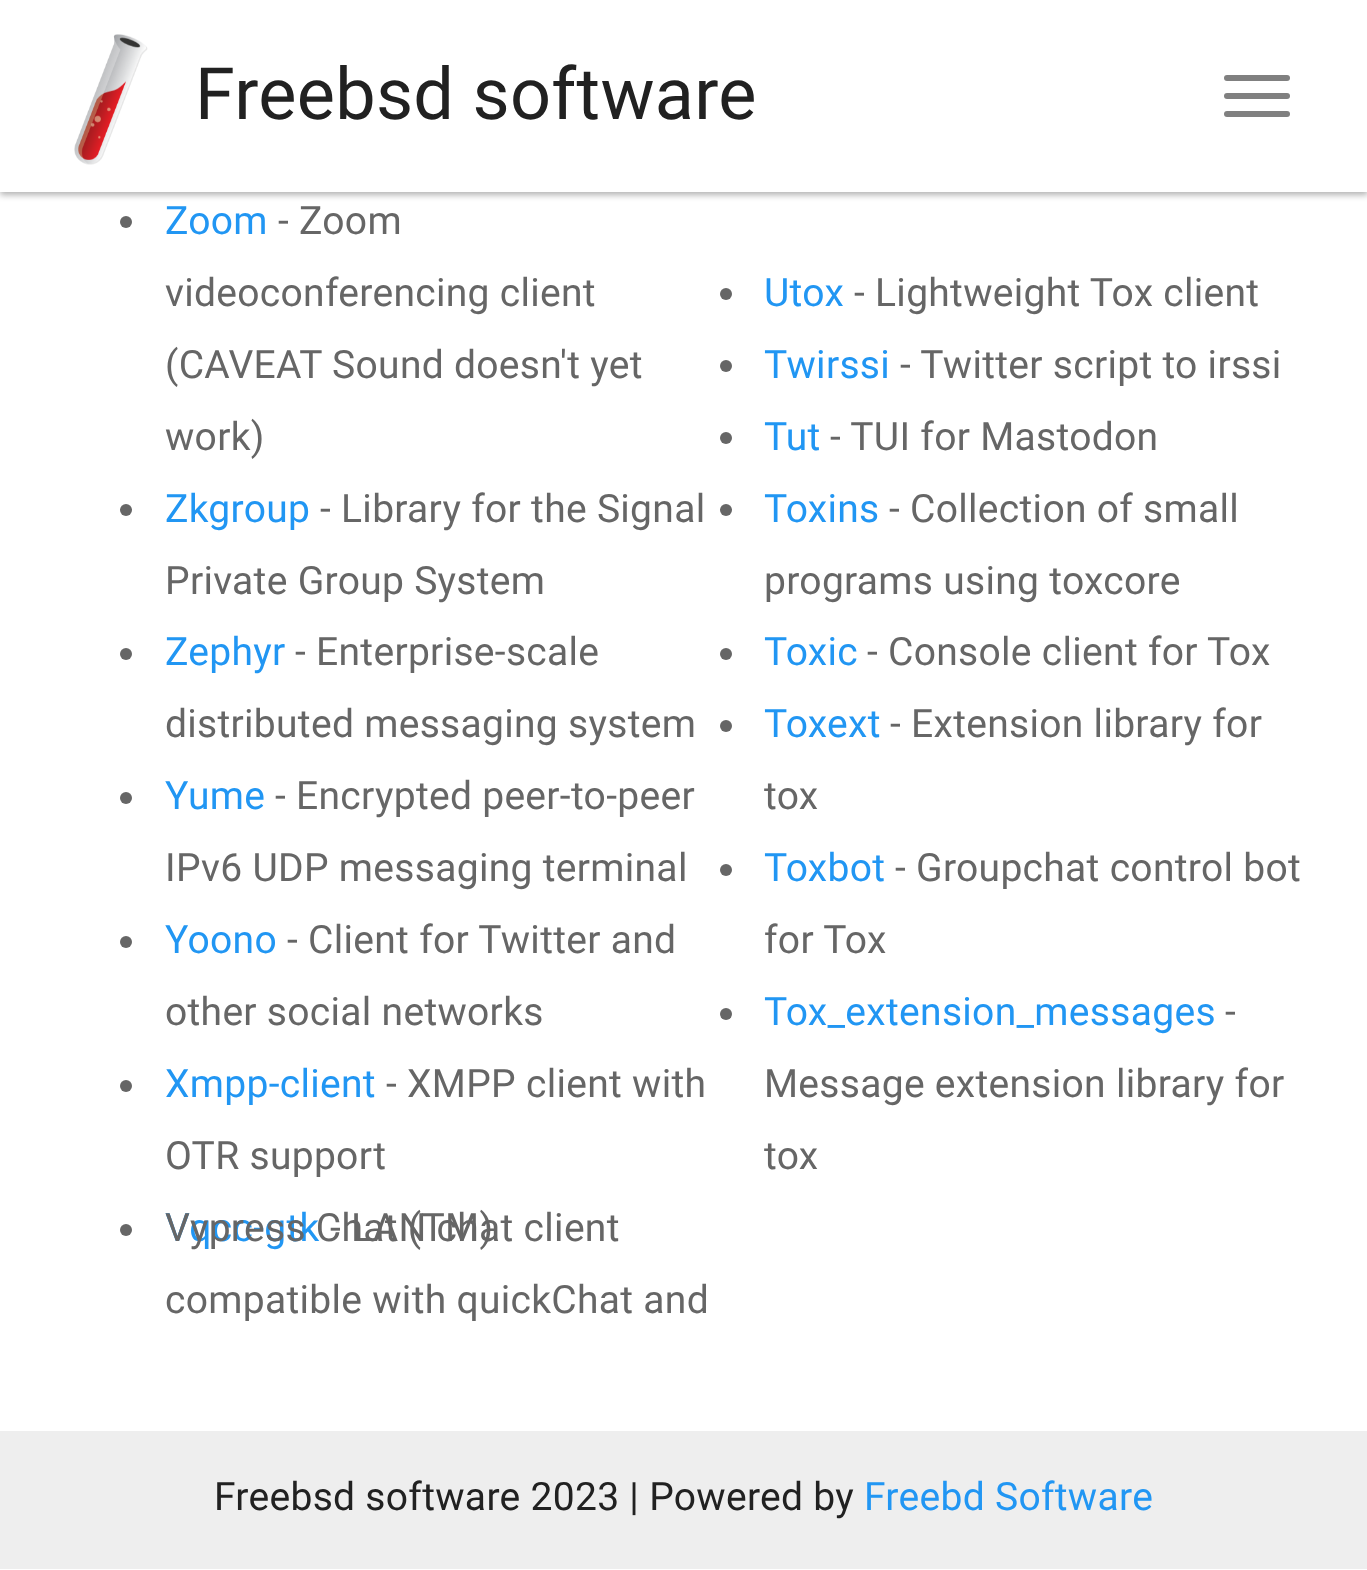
<?xml version="1.0" encoding="UTF-8"?>
<svg xmlns="http://www.w3.org/2000/svg" xmlns:xlink="http://www.w3.org/1999/xlink" width="1367" height="1570">
  <rect width="100%" height="100%" fill="#ffffff" />
  <rect y="3" width="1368" height="192" fill="#000000" fill-opacity="0.3" filter="blur(3px)" />
  <rect width="1367" height="192" fill="#ffffff" />
  <image x="74" y="34" width="74" height="131" xlink:href="image1.png" />
  <rect x="1224" y="75" width="66" height="6" rx="3" fill="#808080" />
  <rect x="1224" y="93" width="66" height="6" rx="3" fill="#808080" />
  <rect x="1224" y="111" width="66" height="6" rx="3" fill="#808080" />
  <circle cx="126" cy="222" r="6" fill="#666666" />
  <circle cx="726" cy="294" r="6" fill="#666666" />
  <circle cx="726" cy="366" r="6" fill="#666666" />
  <circle cx="726" cy="438" r="6" fill="#666666" />
  <circle cx="126" cy="510" r="6" fill="#666666" />
  <circle cx="726" cy="510" r="6" fill="#666666" />
  <circle cx="126" cy="654" r="6" fill="#666666" />
  <circle cx="726" cy="654" r="6" fill="#666666" />
  <circle cx="726" cy="726" r="6" fill="#666666" />
  <circle cx="126" cy="798" r="6" fill="#666666" />
  <circle cx="726" cy="870" r="6" fill="#666666" />
  <circle cx="126" cy="942" r="6" fill="#666666" />
  <circle cx="126" cy="1086" r="6" fill="#666666" />
  <circle cx="726" cy="1014" r="6" fill="#666666" />
  <circle cx="126" cy="1230" r="6" fill="#666666" />
  <rect y="1431" width="1367" height="138" fill="#eeeeee" />
  <text x="195" y="119" style="font-family: Roboto; font-size: 72px; letter-spacing: 0.3px; fill: #212121">Freebsd software</text>
  <text x="165" y="234" style="font-family: Roboto; font-size: 39px; letter-spacing: 0.3px; fill: #2196f3">Zoom</text>
  <text x="278" y="234" style="font-family: Roboto; font-size: 39px; letter-spacing: 0.3px; fill: #666666">- Zoom</text>
  <text x="165" y="306" style="font-family: Roboto; font-size: 39px; letter-spacing: 0.3px; fill: #666666">videoconferencing client</text>
  <text x="165" y="378" style="font-family: Roboto; font-size: 39px; letter-spacing: 0.3px; fill: #666666">(CAVEAT Sound doesn't yet</text>
  <text x="165" y="450" style="font-family: Roboto; font-size: 39px; letter-spacing: 0.3px; fill: #666666">work)</text>
  <text x="764" y="306" style="font-family: Roboto; font-size: 39px; letter-spacing: 0.3px; fill: #2196f3">Utox</text>
  <text x="854" y="306" style="font-family: Roboto; font-size: 39px; letter-spacing: 0.3px; fill: #666666">- Lightweight Tox client</text>
  <text x="764" y="378" style="font-family: Roboto; font-size: 39px; letter-spacing: 0.3px; fill: #2196f3">Twirssi</text>
  <text x="900" y="378" style="font-family: Roboto; font-size: 39px; letter-spacing: 0.3px; fill: #666666">- Twitter script to irssi</text>
  <text x="764" y="450" style="font-family: Roboto; font-size: 39px; letter-spacing: 0.3px; fill: #2196f3">Tut</text>
  <text x="830" y="450" style="font-family: Roboto; font-size: 39px; letter-spacing: 0.3px; fill: #666666">- TUI for Mastodon</text>
  <text x="165" y="522" style="font-family: Roboto; font-size: 39px; letter-spacing: 0.3px; fill: #2196f3">Zkgroup</text>
  <text x="320" y="522" style="font-family: Roboto; font-size: 39px; letter-spacing: 0.3px; fill: #666666">- Library for the Signal</text>
  <text x="165" y="594" style="font-family: Roboto; font-size: 39px; letter-spacing: 0.3px; fill: #666666">Private Group System</text>
  <text x="764" y="522" style="font-family: Roboto; font-size: 39px; letter-spacing: 0.3px; fill: #2196f3">Toxins</text>
  <text x="889" y="522" style="font-family: Roboto; font-size: 39px; letter-spacing: 0.3px; fill: #666666">- Collection of small</text>
  <text x="764" y="594" style="font-family: Roboto; font-size: 39px; letter-spacing: 0.3px; fill: #666666">programs using toxcore</text>
  <text x="165" y="665" style="font-family: Roboto; font-size: 39px; letter-spacing: 0.3px; fill: #2196f3">Zephyr</text>
  <text x="295" y="665" style="font-family: Roboto; font-size: 39px; letter-spacing: 0.3px; fill: #666666">- Enterprise-scale</text>
  <text x="165" y="737" style="font-family: Roboto; font-size: 39px; letter-spacing: 0.3px; fill: #666666">distributed messaging system</text>
  <text x="764" y="665" style="font-family: Roboto; font-size: 39px; letter-spacing: 0.3px; fill: #2196f3">Toxic</text>
  <text x="867" y="665" style="font-family: Roboto; font-size: 39px; letter-spacing: 0.3px; fill: #666666">- Console client for Tox</text>
  <text x="764" y="737" style="font-family: Roboto; font-size: 39px; letter-spacing: 0.3px; fill: #2196f3">Toxext</text>
  <text x="890" y="737" style="font-family: Roboto; font-size: 39px; letter-spacing: 0.3px; fill: #666666">- Extension library for</text>
  <text x="764" y="809" style="font-family: Roboto; font-size: 39px; letter-spacing: 0.3px; fill: #666666">tox</text>
  <text x="165" y="809" style="font-family: Roboto; font-size: 39px; letter-spacing: 0.3px; fill: #2196f3">Yume</text>
  <text x="275" y="809" style="font-family: Roboto; font-size: 39px; letter-spacing: 0.3px; fill: #666666">- Encrypted peer-to-peer</text>
  <text x="165" y="881" style="font-family: Roboto; font-size: 39px; letter-spacing: 0.3px; fill: #666666">IPv6 UDP messaging terminal</text>
  <text x="764" y="881" style="font-family: Roboto; font-size: 39px; letter-spacing: 0.3px; fill: #2196f3">Toxbot</text>
  <text x="895" y="881" style="font-family: Roboto; font-size: 39px; letter-spacing: 0.3px; fill: #666666">- Groupchat control bot</text>
  <text x="764" y="953" style="font-family: Roboto; font-size: 39px; letter-spacing: 0.3px; fill: #666666">for Tox</text>
  <text x="165" y="953" style="font-family: Roboto; font-size: 39px; letter-spacing: 0.3px; fill: #2196f3">Yoono</text>
  <text x="287" y="953" style="font-family: Roboto; font-size: 39px; letter-spacing: 0.3px; fill: #666666">- Client for Twitter and</text>
  <text x="165" y="1025" style="font-family: Roboto; font-size: 39px; letter-spacing: 0.3px; fill: #666666">other social networks</text>
  <text x="165" y="1097" style="font-family: Roboto; font-size: 39px; letter-spacing: 0.3px; fill: #2196f3">Xmpp-client</text>
  <text x="386" y="1097" style="font-family: Roboto; font-size: 39px; letter-spacing: 0.3px; fill: #666666">- XMPP client with</text>
  <text x="165" y="1169" style="font-family: Roboto; font-size: 39px; letter-spacing: 0.3px; fill: #666666">OTR support</text>
  <text x="764" y="1025" style="font-family: Roboto; font-size: 39px; letter-spacing: 0.3px; fill: #2196f3">Tox_extension_messages</text>
  <text x="1225" y="1025" style="font-family: Roboto; font-size: 39px; letter-spacing: 0.3px; fill: #666666">-</text>
  <text x="764" y="1097" style="font-family: Roboto; font-size: 39px; letter-spacing: 0.3px; fill: #666666">Message extension library for</text>
  <text x="764" y="1169" style="font-family: Roboto; font-size: 39px; letter-spacing: 0.3px; fill: #666666">tox</text>
  <text x="165" y="1241" style="font-family: Roboto; font-size: 39px; letter-spacing: 0.3px; fill: #2196f3">Vqcc-gtk</text>
  <text x="330" y="1241" style="font-family: Roboto; font-size: 39px; letter-spacing: 0.3px; fill: #666666">- LAN chat client</text>
  <text x="165" y="1241" style="font-family: Roboto; font-size: 39px; letter-spacing: 0.3px; fill: #666666">Vypress Chat (TM)</text>
  <text x="165" y="1313" style="font-family: Roboto; font-size: 39px; letter-spacing: 0.3px; fill: #666666">compatible with quickChat and</text>
  <text x="214" y="1510" style="font-family: Roboto; font-size: 39px; letter-spacing: 0.3px; fill: #212121">Freebsd software 2023 | Powered by</text>
  <text x="864" y="1510" style="font-family: Roboto; font-size: 39px; letter-spacing: 0.3px; fill: #2196f3">Freebd Software</text>
</svg>
